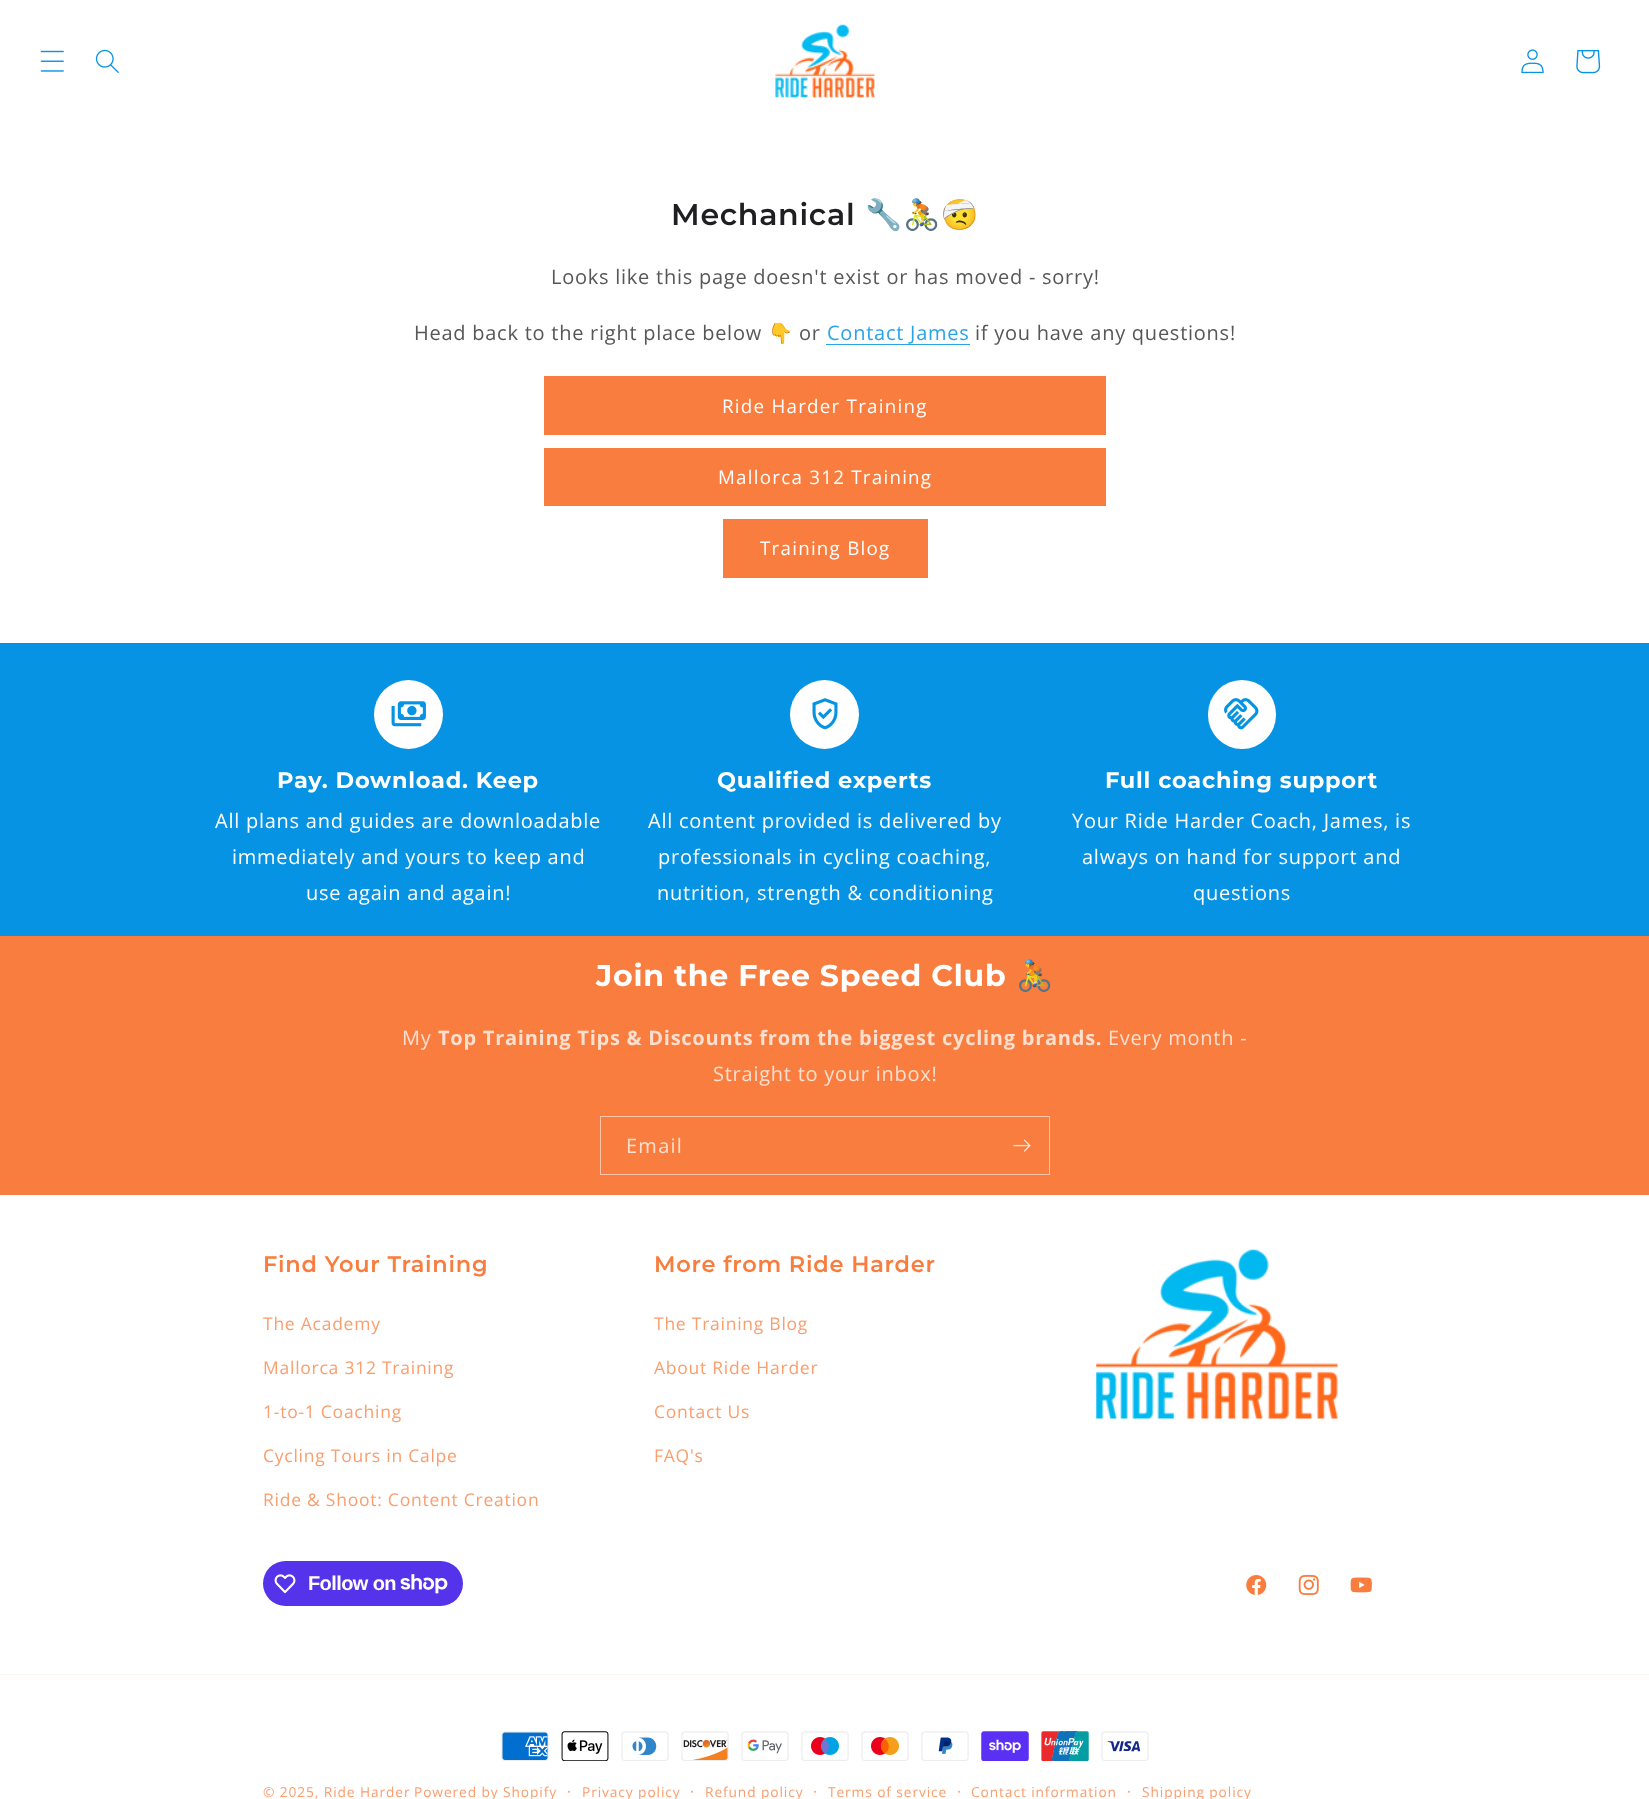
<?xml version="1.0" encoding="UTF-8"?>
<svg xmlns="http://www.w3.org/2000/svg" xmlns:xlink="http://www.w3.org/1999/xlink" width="1649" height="1799">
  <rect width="100%" height="100%" fill="#ffffff" />
  <image x="40" y="50" width="24" height="22" xlink:href="image1.png" />
  <image x="95" y="49" width="24" height="24" xlink:href="image2.png" />
  <image x="775" y="24" width="100" height="74" xlink:href="image3.png" />
  <image x="1521" y="49" width="23" height="25" xlink:href="image4.png" />
  <image x="1576" y="50" width="25" height="24" xlink:href="image5.png" />
  <rect x="826" y="344" width="144" height="1" fill="#2ba3e7" />
  <rect x="544" y="376" width="562" height="59" fill="#f87d3e" />
  <rect x="544" y="448" width="562" height="58" fill="#f87d3e" />
  <rect x="723" y="519" width="205" height="59" fill="#f87d3e" />
  <rect y="643" width="1649" height="293" fill="#0693e3" />
  <circle cx="408.5" cy="714.5" r="34.5" fill="#ffffff" />
  <image x="391" y="701" width="35" height="26" xlink:href="image6.png" />
  <circle cx="824.5" cy="714.5" r="34.5" fill="#ffffff" />
  <image x="812" y="698" width="26" height="32" xlink:href="image7.png" />
  <rect x="1208" y="680" width="68" height="69" rx="34" fill="#ffffff" />
  <image x="1224" y="698" width="35" height="32" xlink:href="image8.png" />
  <rect y="936" width="1649" height="259" fill="#f87d3e" />
  <rect x="600.5" y="1116.5" width="449" height="58" fill="none" stroke="#fcc5a8" />
  <image x="1013" y="1139" width="18" height="13" xlink:href="image9.png" />
  <image x="1096" y="1249" width="242" height="170" xlink:href="image10.png" />
  <rect x="263" y="1561" width="200" height="45" rx="22.5" fill="#5433eb" />
  <image x="274" y="1574" width="22" height="20" xlink:href="image11.png" />
  <image x="400" y="1574" width="48" height="20" xlink:href="image12.png" />
  <image x="1246" y="1575" width="21" height="20" xlink:href="image13.png" />
  <image x="1298" y="1575" width="21" height="20" xlink:href="image14.png" />
  <image x="1350" y="1577" width="22" height="16" xlink:href="image15.png" />
  <rect y="1674" width="1649" height="1" fill="#fef5f0" />
  <image x="501" y="1731" width="48" height="30" xlink:href="image16.png" />
  <image x="561" y="1731" width="48" height="30" xlink:href="image17.png" />
  <image x="621" y="1731" width="48" height="30" xlink:href="image18.png" />
  <image x="681" y="1731" width="48" height="30" xlink:href="image19.png" />
  <image x="741" y="1731" width="48" height="30" xlink:href="image20.png" />
  <image x="801" y="1731" width="48" height="30" xlink:href="image21.png" />
  <image x="861" y="1731" width="48" height="30" xlink:href="image22.png" />
  <image x="921" y="1731" width="48" height="30" xlink:href="image23.png" />
  <image x="981" y="1731" width="48" height="30" xlink:href="image24.png" />
  <image x="1041" y="1731" width="48" height="30" xlink:href="image25.png" />
  <image x="1101" y="1731" width="48" height="30" xlink:href="image26.png" />
  <text x="671" y="225" style="font-family: Montserrat; font-size: 30px; font-weight: 600; letter-spacing: 0.75px; fill: #1f1f21">Mechanical</text>
  <text x="865" y="225" style="font-family: Noto Color Emoji; font-size: 30px; font-weight: bold; letter-spacing: 0.75px; fill: #1f1f21">🔧🚴🤕</text>
  <text x="551" y="284" style="font-family: Open Sans; font-size: 20px; letter-spacing: 0.75px; fill: #575759">Looks like this page doesn't exist or has moved - sorry!</text>
  <text x="414" y="340" style="font-family: Open Sans; font-size: 20px; letter-spacing: 0.75px; fill: #575759">Head back to the right place below</text>
  <text x="768" y="340" style="font-family: Noto Color Emoji; font-size: 20px; letter-spacing: 0.75px; fill: #575759">👇</text>
  <text x="799" y="340" style="font-family: Open Sans; font-size: 20px; letter-spacing: 0.75px; fill: #575759">or</text>
  <text x="827" y="340" style="font-family: Open Sans; font-size: 20px; letter-spacing: 0.75px; fill: #2ba3e7">Contact James</text>
  <text x="975" y="340" style="font-family: Open Sans; font-size: 20px; letter-spacing: 0.75px; fill: #575759">if you have any questions!</text>
  <text x="722" y="413" style="font-family: Open Sans; font-size: 18.75px; letter-spacing: 1.25px; fill: #ffffff">Ride Harder Training</text>
  <text x="718" y="484" style="font-family: Open Sans; font-size: 18.75px; letter-spacing: 1.25px; fill: #ffffff">Mallorca 312 Training</text>
  <text x="760" y="555" style="font-family: Open Sans; font-size: 18.75px; letter-spacing: 1.25px; fill: #ffffff">Training Blog</text>
  <text x="277" y="788" style="font-family: Montserrat; font-size: 22.5px; font-weight: bold; letter-spacing: 0.75px; fill: #ffffff">Pay. Download. Keep</text>
  <text x="215" y="828" style="font-family: Open Sans; font-size: 20px; letter-spacing: 0.75px; fill: #ffffff">All plans and guides are downloadable</text>
  <text x="232" y="864" style="font-family: Open Sans; font-size: 20px; letter-spacing: 0.75px; fill: #ffffff">immediately and yours to keep and</text>
  <text x="306" y="900" style="font-family: Open Sans; font-size: 20px; letter-spacing: 0.75px; fill: #ffffff">use again and again!</text>
  <text x="717" y="788" style="font-family: Montserrat; font-size: 22.5px; font-weight: bold; letter-spacing: 0.75px; fill: #ffffff">Qualified experts</text>
  <text x="648" y="828" style="font-family: Open Sans; font-size: 20px; letter-spacing: 0.75px; fill: #ffffff">All content provided is delivered by</text>
  <text x="658" y="864" style="font-family: Open Sans; font-size: 20px; letter-spacing: 0.75px; fill: #ffffff">professionals in cycling coaching,</text>
  <text x="657" y="900" style="font-family: Open Sans; font-size: 20px; letter-spacing: 0.75px; fill: #ffffff">nutrition, strength &amp; conditioning</text>
  <text x="1105" y="788" style="font-family: Montserrat; font-size: 22.5px; font-weight: bold; letter-spacing: 0.75px; fill: #ffffff">Full coaching support</text>
  <text x="1072" y="828" style="font-family: Open Sans; font-size: 20px; letter-spacing: 0.75px; fill: #ffffff">Your Ride Harder Coach, James, is</text>
  <text x="1082" y="864" style="font-family: Open Sans; font-size: 20px; letter-spacing: 0.75px; fill: #ffffff">always on hand for support and</text>
  <text x="1193" y="900" style="font-family: Open Sans; font-size: 20px; letter-spacing: 0.75px; fill: #ffffff">questions</text>
  <text x="596" y="986" style="font-family: Montserrat; font-size: 30px; font-weight: bold; letter-spacing: 0.75px; fill: #ffffff">Join the Free Speed Club</text>
  <text x="1016" y="986" style="font-family: Noto Color Emoji; font-size: 30px; font-weight: bold; letter-spacing: 0.75px; fill: #ffffff">🚴</text>
  <text x="402" y="1045" style="font-family: Open Sans; font-size: 20px; letter-spacing: 0.75px; fill: #fddfcf">My</text>
  <text x="438" y="1045" style="font-family: Open Sans; font-size: 20px; font-weight: bold; letter-spacing: 0.75px; fill: #fddfcf">Top Training Tips &amp; Discounts from the biggest cycling brands.</text>
  <text x="1108" y="1045" style="font-family: Open Sans; font-size: 20px; letter-spacing: 0.75px; fill: #fddfcf">Every month -</text>
  <text x="713" y="1081" style="font-family: Open Sans; font-size: 20px; letter-spacing: 0.75px; fill: #fddfcf">Straight to your inbox!</text>
  <text x="626" y="1153" style="font-family: Open Sans; font-size: 20px; letter-spacing: 1.25px; fill: #fddfcf">Email</text>
  <text x="263" y="1272" style="font-family: Montserrat; font-size: 22.5px; font-weight: 600; letter-spacing: 0.75px; fill: #f87d3e">Find Your Training</text>
  <text x="263" y="1330" style="font-family: Open Sans; font-size: 17.5px; letter-spacing: 0.75px; fill: #fa9e6e">The Academy</text>
  <text x="263" y="1374" style="font-family: Open Sans; font-size: 17.5px; letter-spacing: 0.75px; fill: #fa9e6e">Mallorca 312 Training</text>
  <text x="263" y="1418" style="font-family: Open Sans; font-size: 17.5px; letter-spacing: 0.75px; fill: #fa9e6e">1-to-1 Coaching</text>
  <text x="263" y="1462" style="font-family: Open Sans; font-size: 17.5px; letter-spacing: 0.75px; fill: #fa9e6e">Cycling Tours in Calpe</text>
  <text x="263" y="1506" style="font-family: Open Sans; font-size: 17.5px; letter-spacing: 0.75px; fill: #fa9e6e">Ride &amp; Shoot: Content Creation</text>
  <text x="654" y="1272" style="font-family: Montserrat; font-size: 22.5px; font-weight: 600; letter-spacing: 0.75px; fill: #f87d3e">More from Ride Harder</text>
  <text x="654" y="1330" style="font-family: Open Sans; font-size: 17.5px; letter-spacing: 0.75px; fill: #fa9e6e">The Training Blog</text>
  <text x="654" y="1374" style="font-family: Open Sans; font-size: 17.5px; letter-spacing: 0.75px; fill: #fa9e6e">About Ride Harder</text>
  <text x="654" y="1418" style="font-family: Open Sans; font-size: 17.5px; letter-spacing: 0.75px; fill: #fa9e6e">Contact Us</text>
  <text x="654" y="1462" style="font-family: Open Sans; font-size: 17.5px; letter-spacing: 0.75px; fill: #fa9e6e">FAQ's</text>
  <text x="308" y="1590" style="font-family: Liberation Sans; font-size: 20px; font-weight: bold; letter-spacing: -0.6px; fill: #ffffff">Follow on</text>
  <text x="263" y="1797" style="font-family: Open Sans; font-size: 13.75px; letter-spacing: 0.9px; fill: #fa9e6e">© 2025, Ride Harder</text>
  <text x="414" y="1797" style="font-family: Open Sans; font-size: 13.75px; letter-spacing: 0.9px; fill: #fa9e6e">Powered by Shopify</text>
  <text x="567" y="1797" style="font-family: Open Sans; font-size: 15px; letter-spacing: 0.9px; fill: #fa9e6e">·</text>
  <text x="582" y="1797" style="font-family: Open Sans; font-size: 13.75px; letter-spacing: 0.9px; fill: #fa9e6e">Privacy policy</text>
  <text x="690" y="1797" style="font-family: Open Sans; font-size: 15px; letter-spacing: 0.9px; fill: #fa9e6e">·</text>
  <text x="705" y="1797" style="font-family: Open Sans; font-size: 13.75px; letter-spacing: 0.9px; fill: #fa9e6e">Refund policy</text>
  <text x="813" y="1797" style="font-family: Open Sans; font-size: 15px; letter-spacing: 0.9px; fill: #fa9e6e">·</text>
  <text x="828" y="1797" style="font-family: Open Sans; font-size: 13.75px; letter-spacing: 0.9px; fill: #fa9e6e">Terms of service</text>
  <text x="957" y="1797" style="font-family: Open Sans; font-size: 15px; letter-spacing: 0.9px; fill: #fa9e6e">·</text>
  <text x="971" y="1797" style="font-family: Open Sans; font-size: 13.75px; letter-spacing: 0.9px; fill: #fa9e6e">Contact information</text>
  <text x="1127" y="1797" style="font-family: Open Sans; font-size: 15px; letter-spacing: 0.9px; fill: #fa9e6e">·</text>
  <text x="1142" y="1797" style="font-family: Open Sans; font-size: 13.75px; letter-spacing: 0.9px; fill: #fa9e6e">Shipping policy</text>
</svg>
